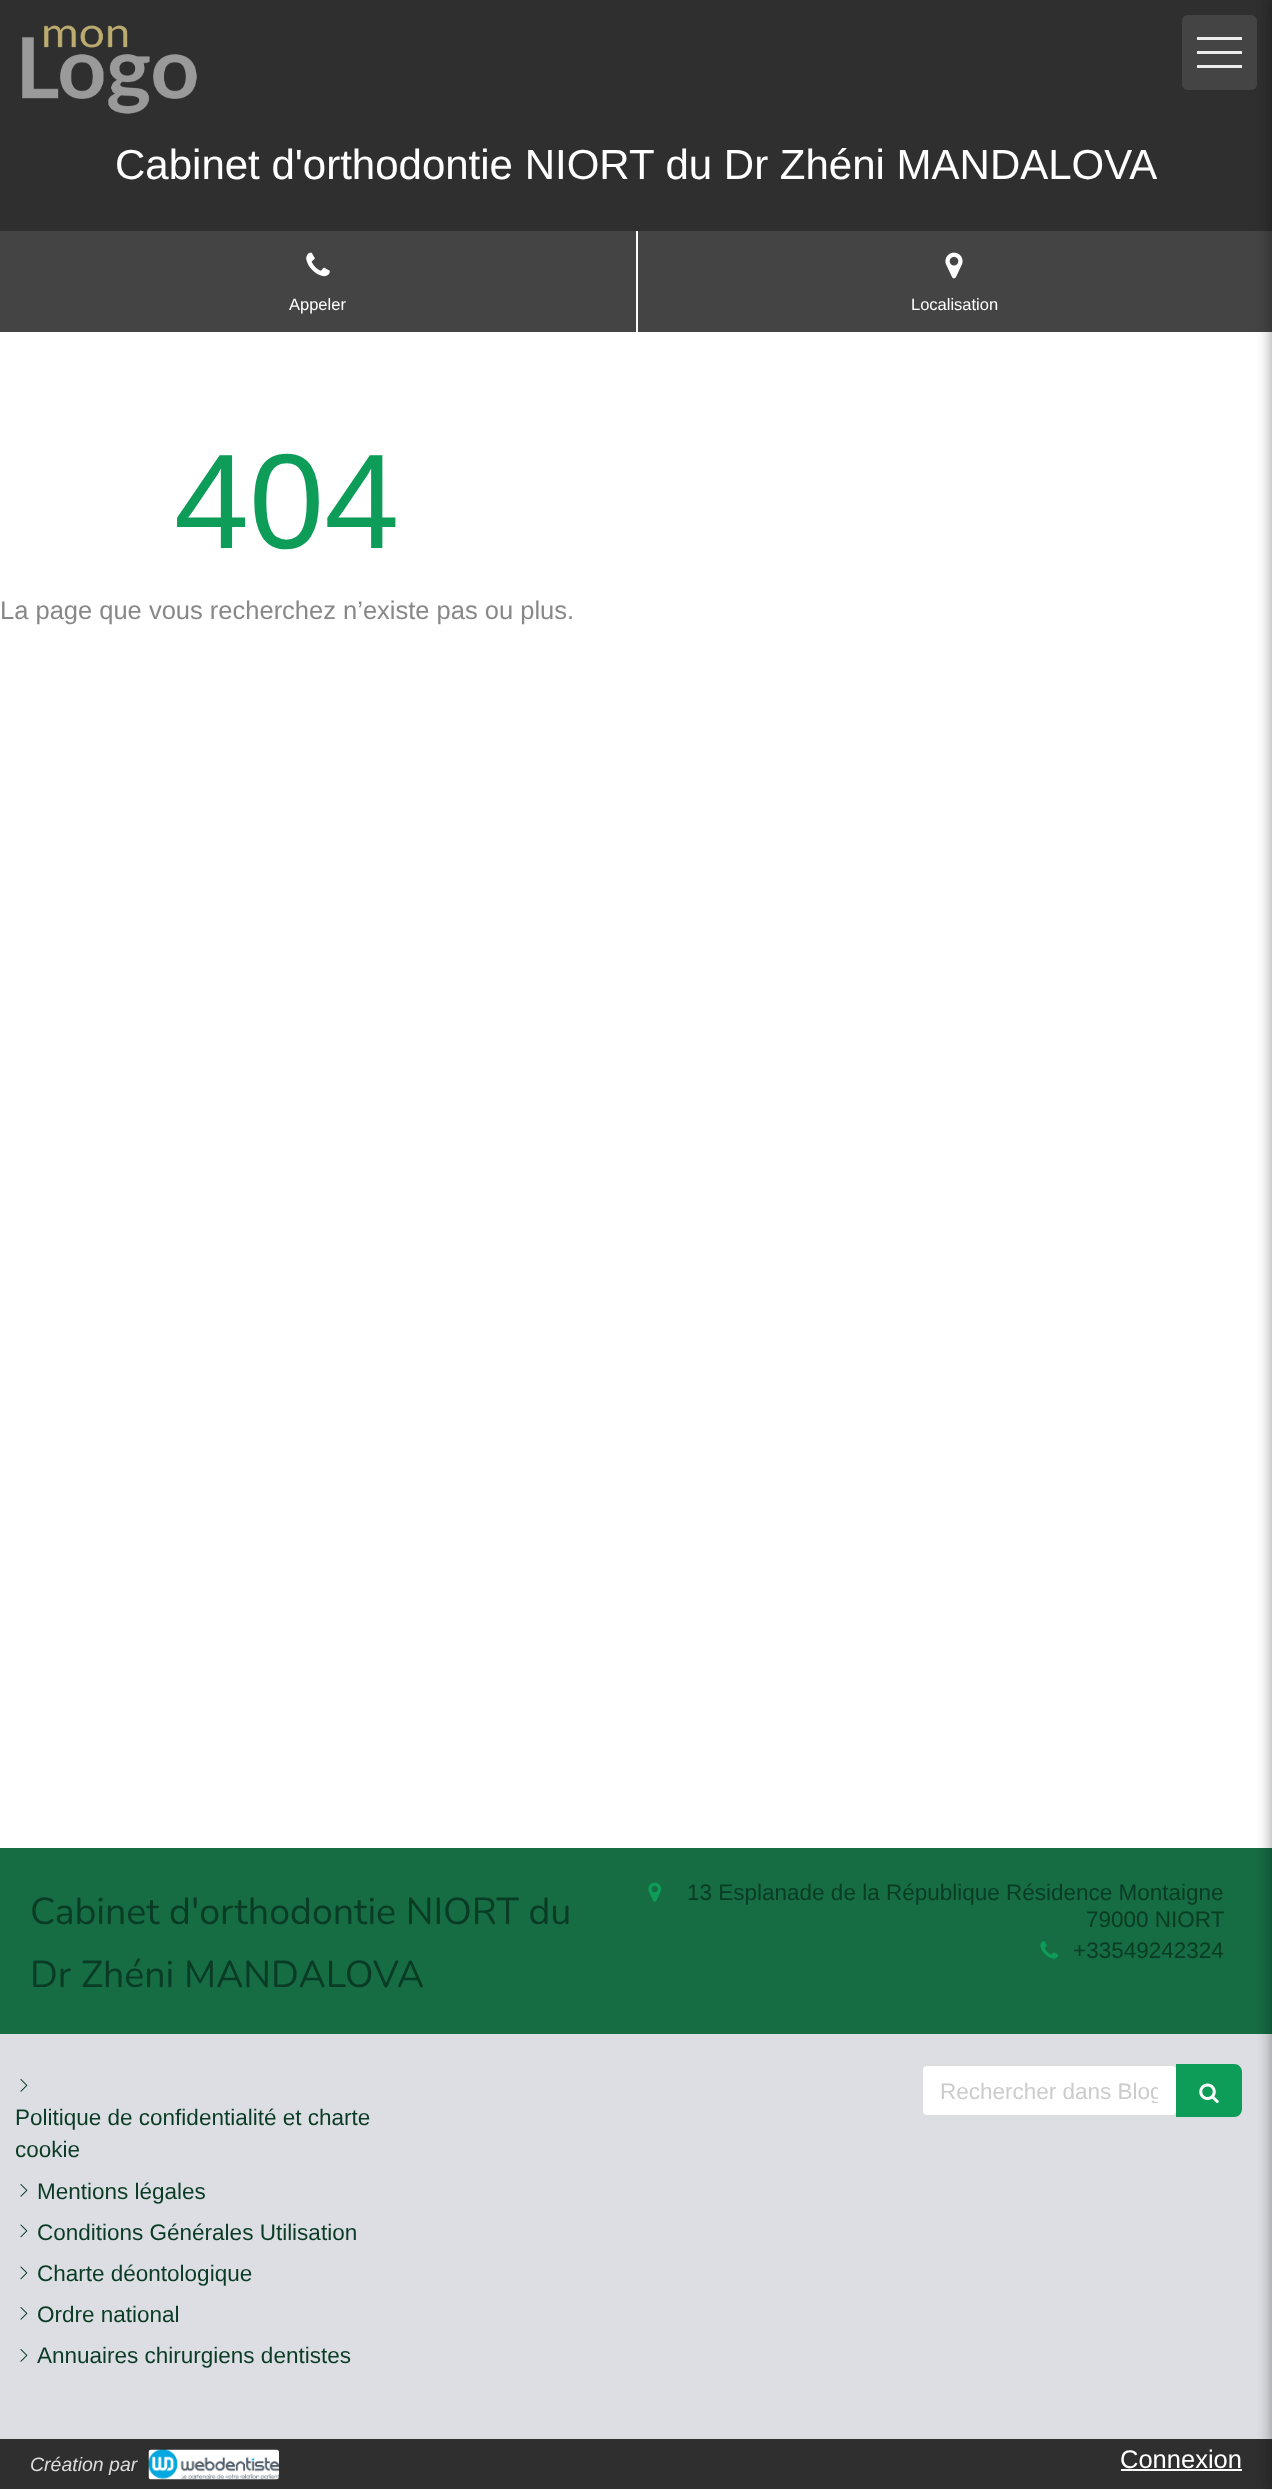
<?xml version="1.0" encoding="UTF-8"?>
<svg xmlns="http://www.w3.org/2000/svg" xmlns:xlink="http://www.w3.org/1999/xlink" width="1272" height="2490">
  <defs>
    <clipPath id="clip1"><rect x="941" y="2078" width="217" height="25" /></clipPath>
  </defs>
  <rect width="100%" height="100%" fill="#ffffff" />
  <rect width="1272" height="231" fill="#2f2f2f" />
  <image x="22" y="25" width="175" height="89" xlink:href="image1.png" />
  <rect x="1182" y="15" width="75" height="75" rx="6" fill="#444444" />
  <rect x="1197" y="37" width="45" height="3" fill="#ececec" />
  <rect x="1197" y="51" width="45" height="3" fill="#ececec" />
  <rect x="1197" y="65" width="45" height="3" fill="#ececec" />
  <rect y="231" width="1272" height="101" fill="#444444" />
  <image x="306" y="252" width="24" height="25" xlink:href="image2.png" />
  <rect x="636" y="231" width="2" height="102" fill="#fbfbfb" />
  <image x="945" y="252" width="18" height="27" xlink:href="image3.png" />
  <rect x="636" y="332" width="2" height="1" fill="#ffffff" />
  <rect y="1848" width="1272" height="186" fill="#166c43" />
  <image x="648" y="1882" width="14" height="20" xlink:href="image4.png" />
  <image x="1040" y="1941" width="18" height="18" xlink:href="image5.png" />
  <rect y="2034" width="1272" height="405" fill="#dcdee3" />
  <rect x="922" y="2065" width="255" height="51" rx="5" fill="#ffffff" stroke="#dddddd" stroke-width="2" />
  <path d="M 1176 2064 h 58 c 4.5 0 8 3.5 8 8 v 37 c 0 4.5 -3.5 8 -8 8 h -58 z" fill="#0e9d58" />
  <image x="1199" y="2083" width="20" height="20" xlink:href="image6.png" />
  <image x="20" y="2079" width="8" height="13" xlink:href="image7.png" />
  <image x="20" y="2184" width="8" height="13" xlink:href="image7.png" />
  <image x="20" y="2224" width="8" height="14" xlink:href="image8.png" />
  <image x="20" y="2266" width="8" height="14" xlink:href="image8.png" />
  <image x="20" y="2307" width="8" height="13" xlink:href="image7.png" />
  <image x="20" y="2349" width="8" height="13" xlink:href="image7.png" />
  <rect y="2439" width="1272" height="50" fill="#2f2f2f" />
  <image x="148" y="2449" width="131" height="31" xlink:href="image9.png" />
  <rect x="1121" y="2469" width="121" height="2" fill="#ffffff" />
  <rect x="1272" width="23" height="2490" fill="#000000" fill-opacity="0.4" filter="blur(7.5px)" />
  <text x="115" y="179" style="font-family: Liberation Sans; font-size: 42px; fill: #ffffff">Cabinet d'orthodontie NIORT du Dr Zhéni MANDALOVA</text>
  <text x="289" y="310" style="font-family: Liberation Sans; font-size: 16.5px; fill: #ffffff">Appeler</text>
  <text x="911" y="310" style="font-family: Liberation Sans; font-size: 16.5px; fill: #ffffff">Localisation</text>
  <text x="174" y="548" style="font-family: Liberation Sans; font-size: 135px; fill: #0e9d58">404</text>
  <text x="0" y="619" style="font-family: Liberation Sans; font-size: 25.5px; fill: #888888">La page que vous recherchez n’existe pas ou plus.</text>
  <text x="30" y="1924" style="font-family: Nunito; font-size: 37.5px; fill: #0a3b24">Cabinet d'orthodontie NIORT du</text>
  <text x="30" y="1987" style="font-family: Nunito; font-size: 37.5px; fill: #0a3b24">Dr Zhéni MANDALOVA</text>
  <text x="687" y="1900" style="font-family: Liberation Sans; font-size: 22.5px; fill: #0a3b24">13 Esplanade de la République Résidence Montaigne</text>
  <text x="1086" y="1927" style="font-family: Liberation Sans; font-size: 22.5px; fill: #0a3b24">79000 NIORT</text>
  <text x="1073" y="1958" style="font-family: Liberation Sans; font-size: 22.5px; fill: #0a3b24">+33549242324</text>
  <g clip-path="url(#clip1)">
    <text x="940" y="2099" style="font-family: Liberation Sans; font-size: 22.5px; fill: #cccccc">Rechercher dans Blog</text>
  </g>
  <text x="15" y="2125" style="font-family: Liberation Sans; font-size: 22.5px; fill: #0a3b24">Politique de confidentialité et charte</text>
  <text x="15" y="2157" style="font-family: Liberation Sans; font-size: 22.5px; fill: #0a3b24">cookie</text>
  <text x="37" y="2199" style="font-family: Liberation Sans; font-size: 22.5px; fill: #0a3b24">Mentions légales</text>
  <text x="37" y="2240" style="font-family: Liberation Sans; font-size: 22.5px; fill: #0a3b24">Conditions Générales Utilisation</text>
  <text x="37" y="2281" style="font-family: Liberation Sans; font-size: 22.5px; fill: #0a3b24">Charte déontologique</text>
  <text x="37" y="2322" style="font-family: Liberation Sans; font-size: 22.5px; fill: #0a3b24">Ordre national</text>
  <text x="37" y="2363" style="font-family: Liberation Sans; font-size: 22.5px; fill: #0a3b24">Annuaires chirurgiens dentistes</text>
  <text x="30" y="2471" style="font-family: Liberation Sans; font-size: 19.5px; font-style: italic; fill: #dcdcdc">Création par</text>
  <text x="1120" y="2468" style="font-family: Liberation Sans; font-size: 25.5px; fill: #ffffff">Connexion</text>
</svg>
